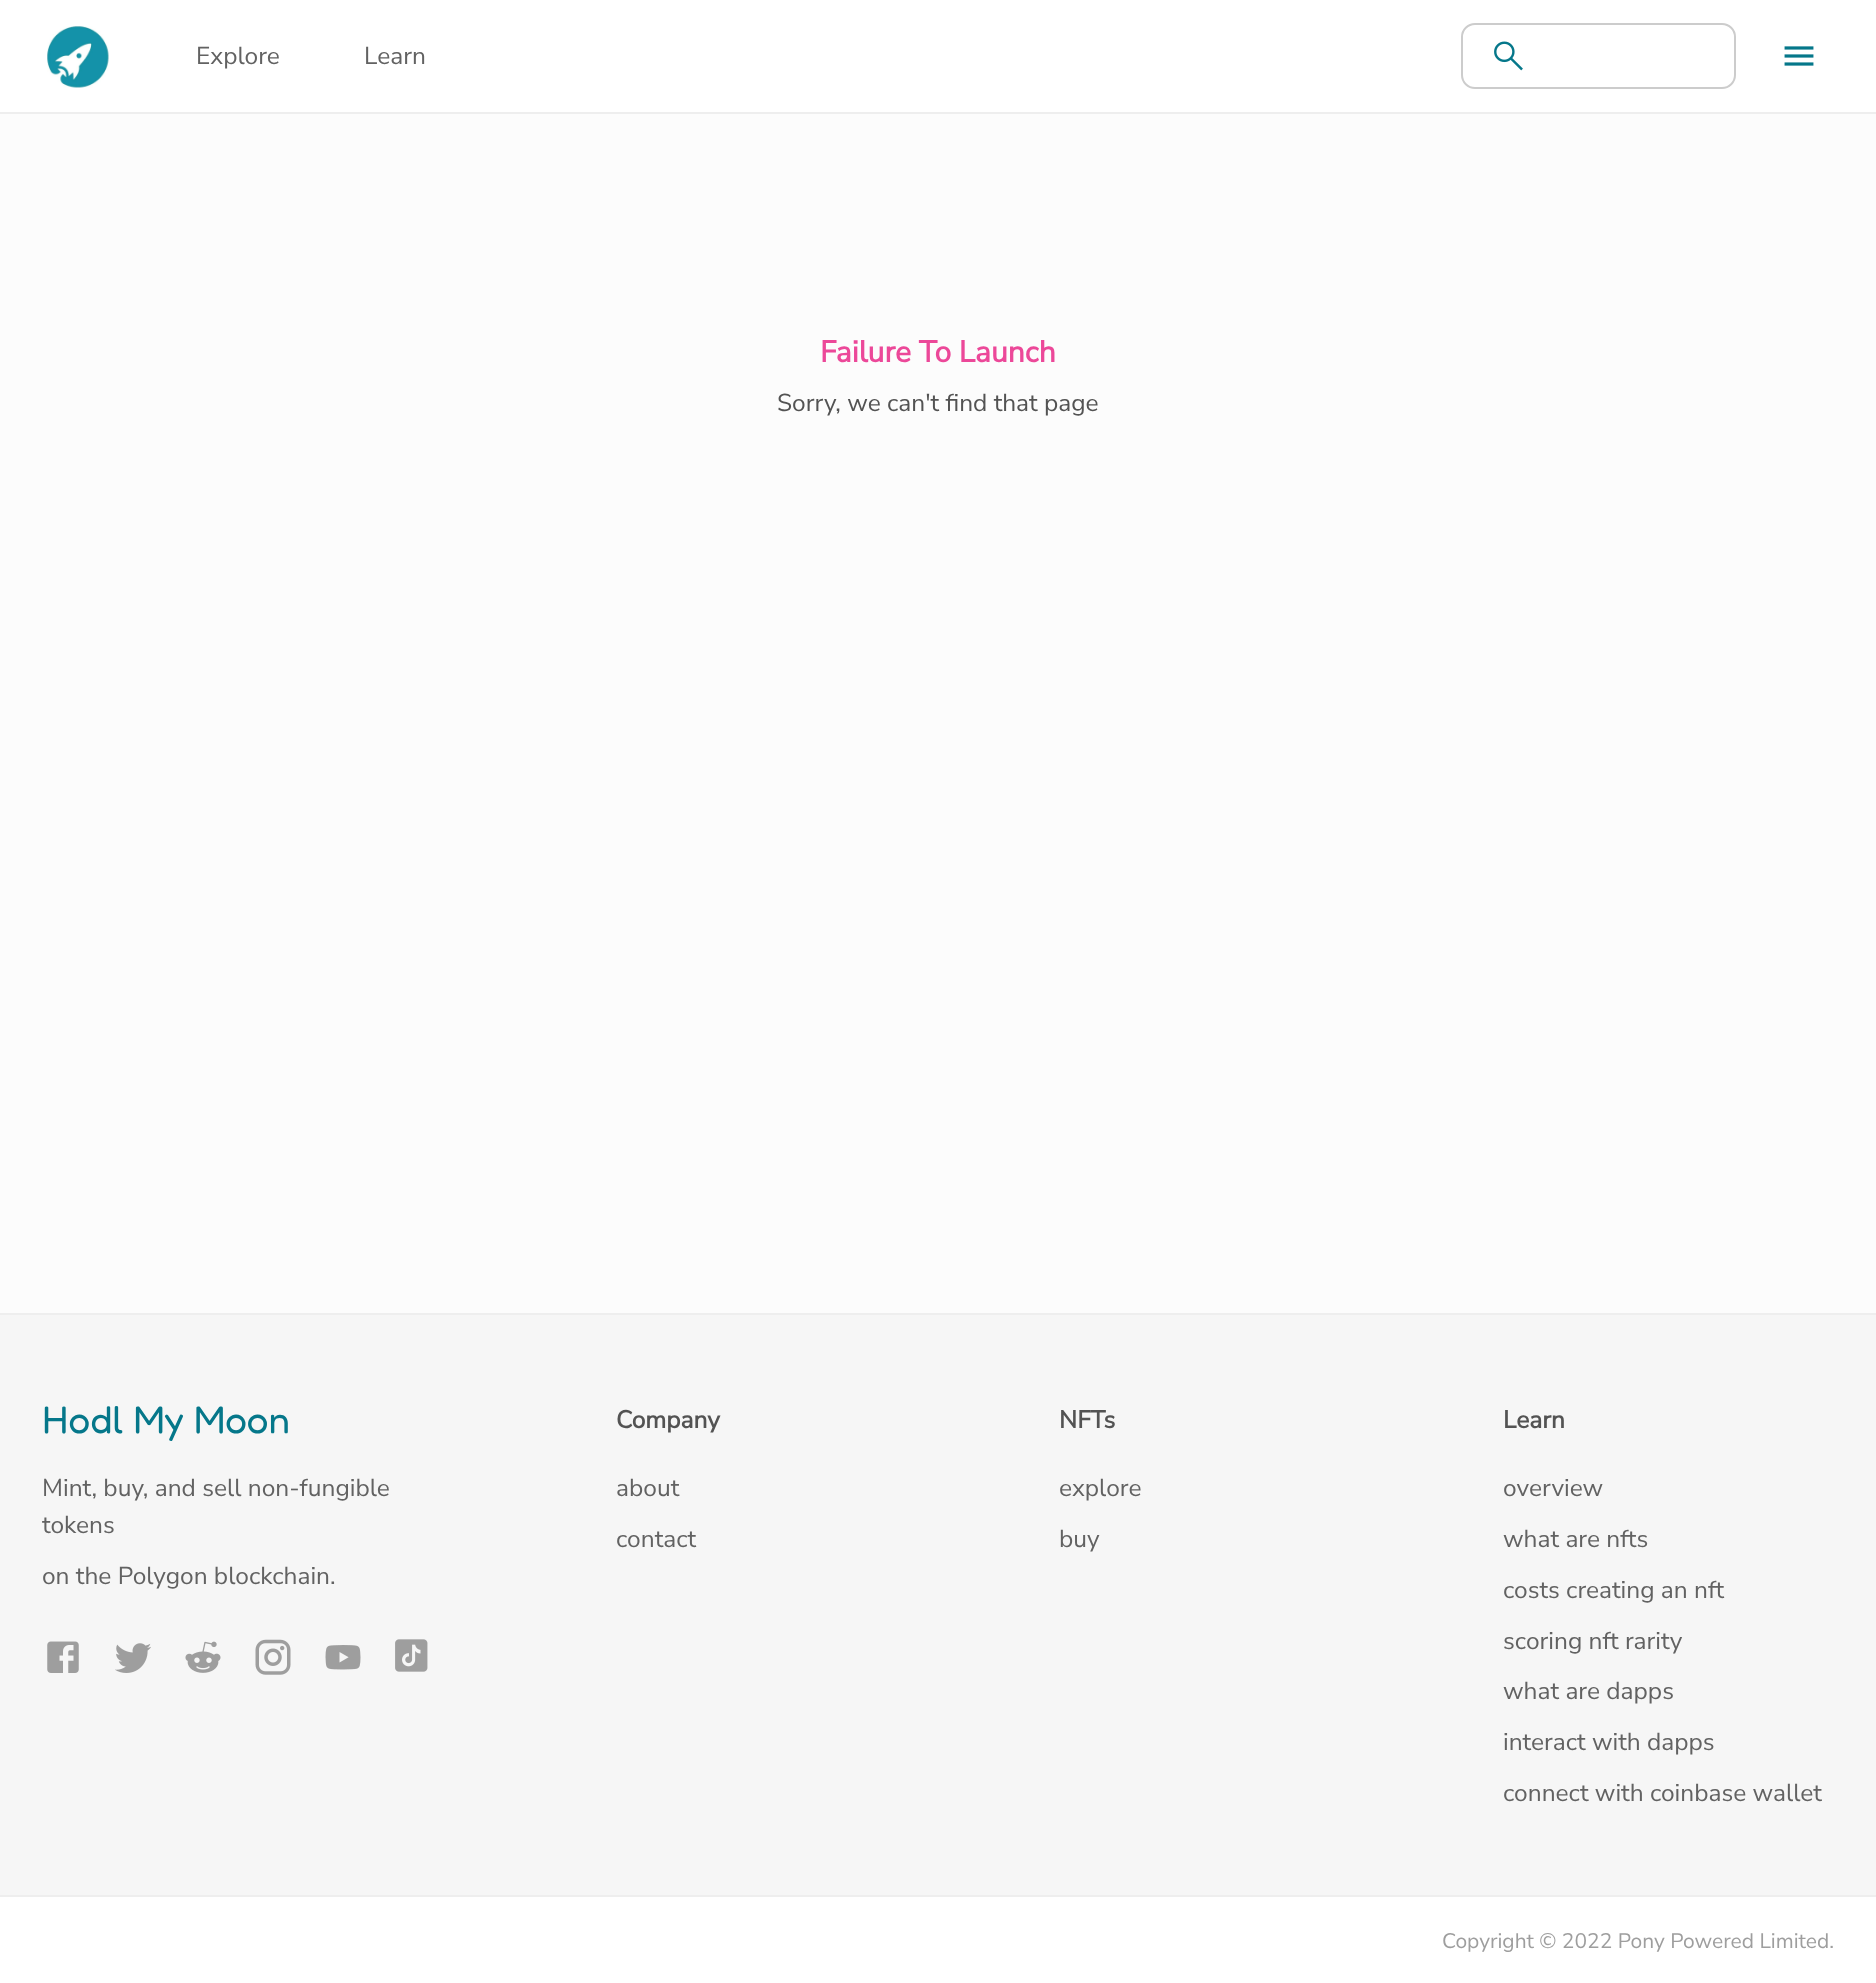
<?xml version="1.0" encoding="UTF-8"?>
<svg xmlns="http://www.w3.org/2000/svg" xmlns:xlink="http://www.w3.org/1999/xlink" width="1876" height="1983">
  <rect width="100%" height="100%" fill="#ffffff" />
  <rect y="112" width="1876" height="2" fill="#eeeeee" />
  <image x="47" y="26" width="62" height="62" xlink:href="image1.png" />
  <image x="1494" y="41" width="29" height="30" xlink:href="image2.png" />
  <rect x="1462" y="24" width="273" height="64" rx="13" fill="none" stroke="#cccccc" stroke-width="2" />
  <image x="1784" y="46" width="30" height="20" xlink:href="image3.png" />
  <rect y="114" width="1876" height="1199" fill="#fcfcfc" />
  <rect y="1315" width="1876" height="580" fill="#f6f6f6" />
  <rect y="1313" width="1876" height="2" fill="#eeeeee" />
  <rect y="1895" width="1876" height="2" fill="#eeeeee" />
  <image x="47" y="1641" width="32" height="32" xlink:href="image4.png" />
  <image x="115" y="1643" width="36" height="30" xlink:href="image5.png" />
  <image x="185" y="1641" width="36" height="32" xlink:href="image6.png" />
  <image x="255" y="1639" width="36" height="36" xlink:href="image7.png" />
  <image x="325" y="1645" width="36" height="25" xlink:href="image8.png" />
  <image x="395" y="1639" width="33" height="33" xlink:href="image9.png" />
  <text x="196" y="64" style="font-family: Nunito Sans; font-size: 24.5px; fill: #626262">Explore</text>
  <text x="364" y="64" style="font-family: Nunito Sans; font-size: 24.5px; fill: #626262">Learn</text>
  <text x="820" y="362" style="font-family: Nunito Sans; font-size: 30px; font-weight: bold; fill: #ec4899">Failure To Launch</text>
  <text x="777" y="411" style="font-family: Nunito Sans; font-size: 24.5px; fill: #535353">Sorry, we can't find that page</text>
  <text x="42" y="1433" style="font-family: Fredoka; font-size: 38.5px; font-weight: 300; fill: #05778a">Hodl My Moon</text>
  <text x="42" y="1496" style="font-family: Nunito Sans; font-size: 24.5px; fill: #626262">Mint, buy, and sell non-fungible</text>
  <text x="42" y="1533" style="font-family: Nunito Sans; font-size: 24.5px; fill: #626262">tokens</text>
  <text x="42" y="1584" style="font-family: Nunito Sans; font-size: 24.5px; fill: #626262">on the Polygon blockchain.</text>
  <text x="616" y="1428" style="font-family: Nunito Sans; font-size: 24.5px; font-weight: bold; fill: #535353">Company</text>
  <text x="616" y="1496" style="font-family: Nunito Sans; font-size: 24.5px; fill: #626262">about</text>
  <text x="616" y="1547" style="font-family: Nunito Sans; font-size: 24.5px; fill: #626262">contact</text>
  <text x="1059" y="1428" style="font-family: Nunito Sans; font-size: 24.5px; font-weight: bold; fill: #535353">NFTs</text>
  <text x="1059" y="1496" style="font-family: Nunito Sans; font-size: 24.5px; fill: #626262">explore</text>
  <text x="1059" y="1547" style="font-family: Nunito Sans; font-size: 24.5px; fill: #626262">buy</text>
  <text x="1503" y="1428" style="font-family: Nunito Sans; font-size: 24.5px; font-weight: bold; fill: #535353">Learn</text>
  <text x="1503" y="1496" style="font-family: Nunito Sans; font-size: 24.5px; fill: #626262">overview</text>
  <text x="1503" y="1547" style="font-family: Nunito Sans; font-size: 24.5px; fill: #626262">what are nfts</text>
  <text x="1503" y="1598" style="font-family: Nunito Sans; font-size: 24.5px; fill: #626262">costs creating an nft</text>
  <text x="1503" y="1649" style="font-family: Nunito Sans; font-size: 24.5px; fill: #626262">scoring nft rarity</text>
  <text x="1503" y="1699" style="font-family: Nunito Sans; font-size: 24.5px; fill: #626262">what are dapps</text>
  <text x="1503" y="1750" style="font-family: Nunito Sans; font-size: 24.5px; fill: #626262">interact with dapps</text>
  <text x="1503" y="1801" style="font-family: Nunito Sans; font-size: 24.5px; fill: #626262">connect with coinbase wallet</text>
  <text x="1442" y="1948" style="font-family: Nunito Sans; font-size: 21px; fill: #9e9e9e">Copyright © 2022 Pony Powered Limited.</text>
</svg>
